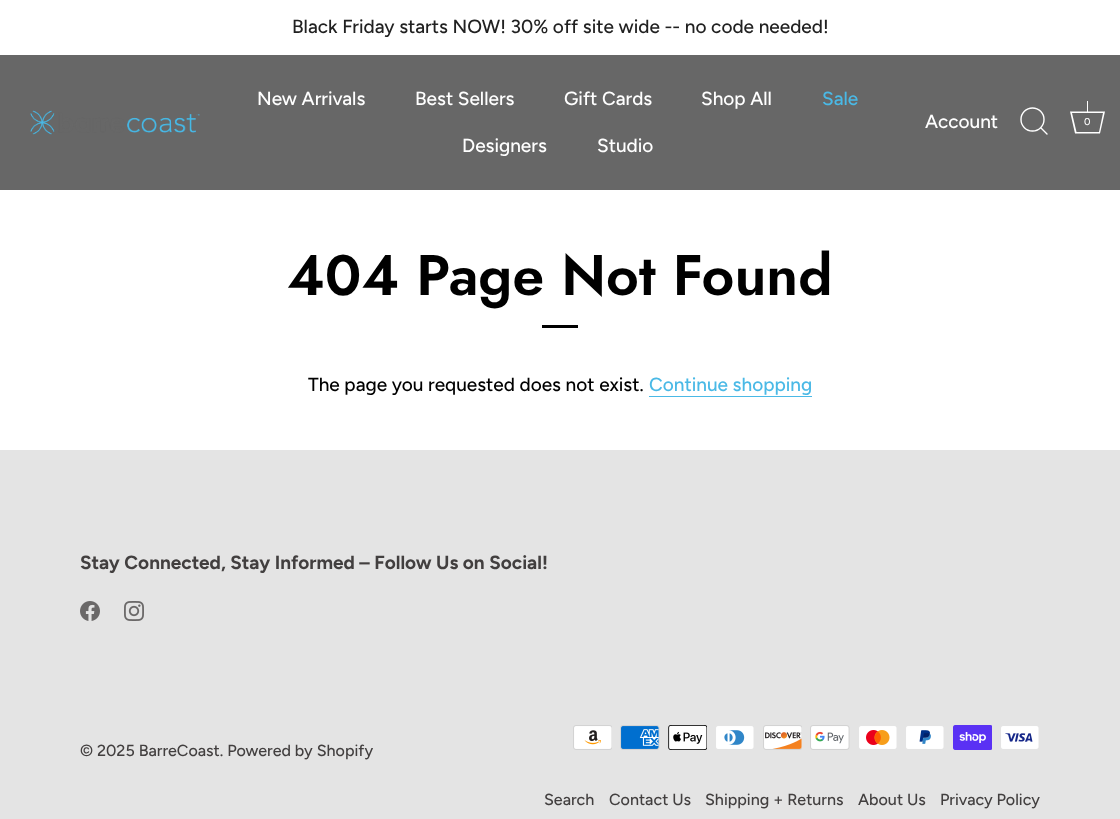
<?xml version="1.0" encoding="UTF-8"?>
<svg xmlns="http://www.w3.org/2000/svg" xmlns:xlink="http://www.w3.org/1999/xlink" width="1120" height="819">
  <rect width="100%" height="100%" fill="#ffffff" />
  <rect y="55" width="1120" height="135" fill="#676767" />
  <image x="30" y="110" width="170" height="25" xlink:href="image1.png" />
  <circle cx="1032.5" cy="119.5" r="11.5" fill="none" stroke="#ffffff" stroke-width="1.4" />
  <path d="M 1047 134 l -6 -6" fill="none" stroke="#ffffff" stroke-width="1.4" stroke-linecap="round" stroke-linejoin="round" />
  <path d="M 1103 113 l -4 19 h -22.5 l -4.5 -19 h 31 m 2 -1.5 h -35 l 5 22 h 25 z" fill="#ffffff" />
  <rect x="1087" y="101" width="1" height="11" fill="#ffffff" />
  <rect x="542" y="325" width="36" height="3" fill="#000000" />
  <rect x="649" y="396" width="163" height="1" fill="#4ab9e6" />
  <rect y="450" width="1120" height="369" fill="#e4e4e4" />
  <image x="80" y="601" width="20" height="20" xlink:href="image2.png" />
  <image x="124" y="601" width="20" height="20" xlink:href="image3.png" />
  <image x="573" y="725" width="39" height="25" xlink:href="image4.png" />
  <image x="620" y="725" width="40" height="25" xlink:href="image5.png" />
  <image x="668" y="725" width="39" height="25" xlink:href="image6.png" />
  <image x="716" y="726" width="38" height="23" xlink:href="image7.png" />
  <image x="763" y="725" width="39" height="25" xlink:href="image8.png" />
  <image x="810" y="725" width="40" height="25" xlink:href="image9.png" />
  <image x="859" y="726" width="38" height="23" xlink:href="image10.png" />
  <image x="906" y="726" width="38" height="23" xlink:href="image11.png" />
  <image x="953" y="725" width="39" height="25" xlink:href="image12.png" />
  <image x="1001" y="726" width="38" height="23" xlink:href="image13.png" />
  <text x="292" y="33" style="font-family: Figtree; font-size: 19px; font-weight: 500; fill: #212121">Black Friday starts NOW! 30% off site wide -- no code needed!</text>
  <text x="257" y="105" style="font-family: Figtree; font-size: 19px; font-weight: 500; fill: #ffffff">New Arrivals</text>
  <text x="415" y="105" style="font-family: Figtree; font-size: 19px; font-weight: 500; fill: #ffffff">Best Sellers</text>
  <text x="564" y="105" style="font-family: Figtree; font-size: 19px; font-weight: 500; fill: #ffffff">Gift Cards</text>
  <text x="701" y="105" style="font-family: Figtree; font-size: 19px; font-weight: 500; fill: #ffffff">Shop All</text>
  <text x="822" y="105" style="font-family: Figtree; font-size: 19px; font-weight: 500; fill: #4ab9e6">Sale</text>
  <text x="462" y="152" style="font-family: Figtree; font-size: 19px; font-weight: 500; fill: #ffffff">Designers</text>
  <text x="597" y="152" style="font-family: Figtree; font-size: 19px; font-weight: 500; fill: #ffffff">Studio</text>
  <text x="925" y="128" style="font-family: Figtree; font-size: 19px; font-weight: 500; fill: #ffffff">Account</text>
  <text x="1084" y="125" style="font-family: Figtree; font-size: 10px; font-weight: 500; fill: #ffffff">0</text>
  <text x="287" y="295" style="font-family: Jost; font-size: 57px; font-weight: 600; fill: #000000">404 Page Not Found</text>
  <text x="308" y="391" style="font-family: Figtree; font-size: 19px; font-weight: 500; fill: #000000">The page you requested does not exist.</text>
  <text x="649" y="391" style="font-family: Figtree; font-size: 19px; font-weight: 500; fill: #4ab9e6">Continue shopping</text>
  <text x="80" y="569" style="font-family: Figtree; font-size: 19px; font-weight: bold; fill: #423f3f">Stay Connected, Stay Informed – Follow Us on Social!</text>
  <text x="80" y="756" style="font-family: Figtree; font-size: 16.1px; font-weight: 500; fill: #423f3f">© 2025 BarreCoast. Powered by Shopify</text>
  <text x="544" y="805" style="font-family: Figtree; font-size: 16.1px; font-weight: 500; fill: #423f3f">Search</text>
  <text x="609" y="805" style="font-family: Figtree; font-size: 16.1px; font-weight: 500; fill: #423f3f">Contact Us</text>
  <text x="705" y="805" style="font-family: Figtree; font-size: 16.1px; font-weight: 500; fill: #423f3f">Shipping + Returns</text>
  <text x="858" y="805" style="font-family: Figtree; font-size: 16.1px; font-weight: 500; fill: #423f3f">About Us</text>
  <text x="940" y="805" style="font-family: Figtree; font-size: 16.1px; font-weight: 500; fill: #423f3f">Privacy Policy</text>
</svg>
